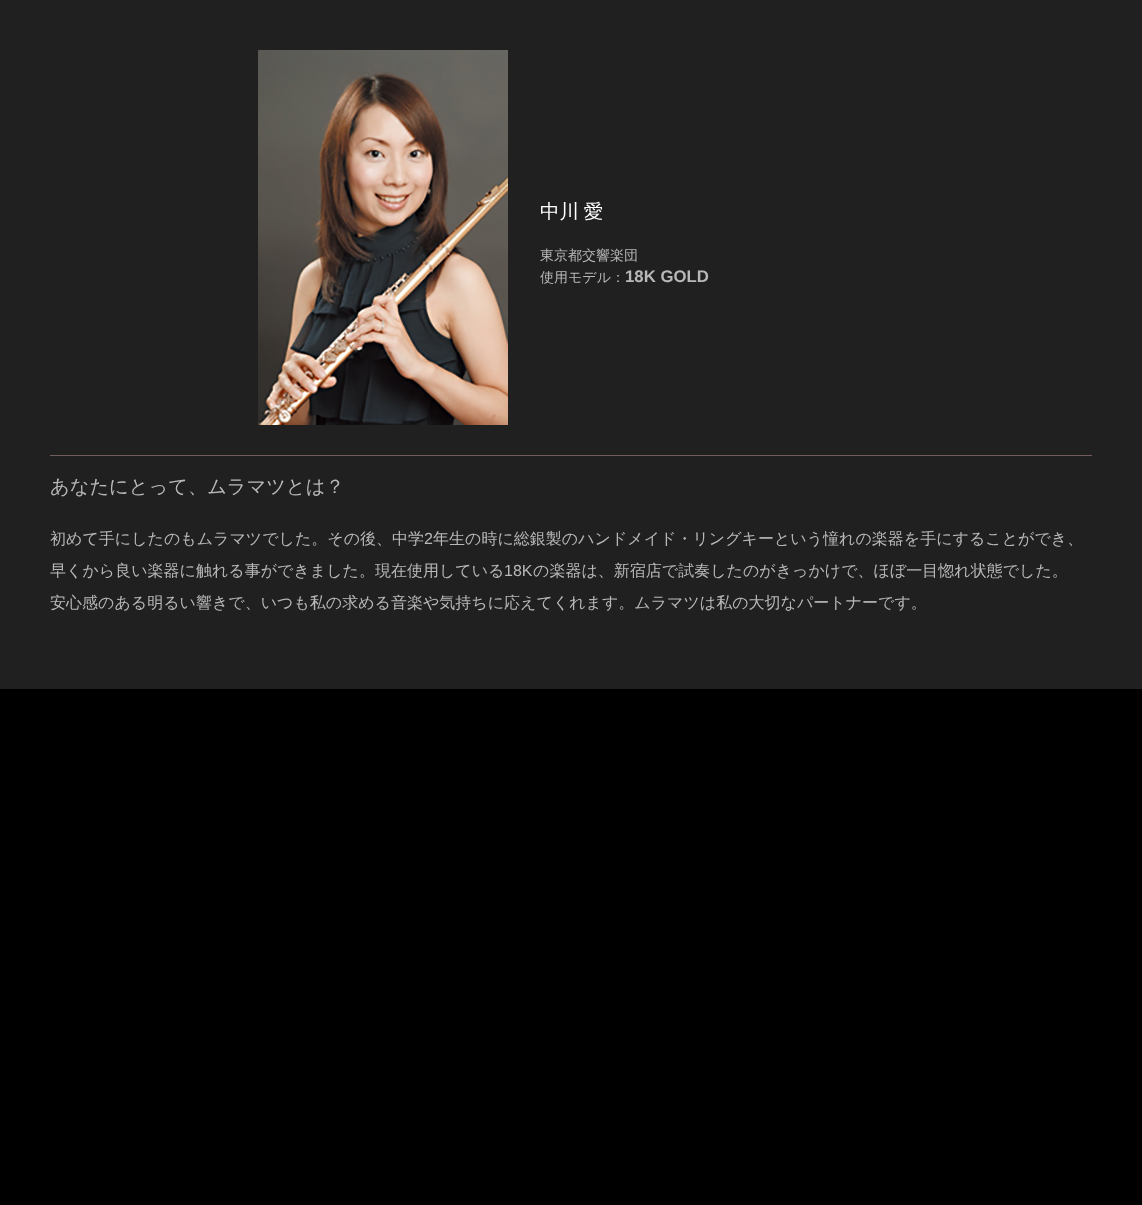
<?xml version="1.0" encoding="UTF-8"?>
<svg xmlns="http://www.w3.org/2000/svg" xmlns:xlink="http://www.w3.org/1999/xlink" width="1142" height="1205">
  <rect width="100%" height="100%" fill="#000000" />
  <rect width="1142" height="689" fill="#202020" />
  <image x="258" y="50" width="250" height="375" xlink:href="image1.png" />
  <rect x="50" y="455" width="1042" height="1" fill="#715d5b" />
  <text x="540" y="218" word-spacing="-1" style="font-family: WenQuanYi Zen Hei; font-size: 19.5px; font-weight: 500; fill: #ffffff">中川 愛</text>
  <text x="540" y="260" style="font-family: WenQuanYi Zen Hei; font-size: 14px; font-weight: 500; fill: #b8b8b8">東京都交響楽団</text>
  <text x="540" y="282" style="font-family: WenQuanYi Zen Hei; font-size: 14px; font-weight: 500; fill: #b8b8b8">使用モデル：</text>
  <text x="625" y="282" style="font-family: Liberation Sans; font-size: 16.75px; font-weight: bold; fill: #b8b8b8">18K GOLD</text>
  <text x="50" y="493" style="font-family: WenQuanYi Zen Hei; font-size: 19.25px; font-weight: 500; fill: #b8b8b8">あなたにとって、ムラマツとは？</text>
  <text x="50" y="544" style="font-family: WenQuanYi Zen Hei; font-size: 16px; font-weight: 500; fill: #b8b8b8">初めて手にしたのもムラマツでした。その後、中学</text>
  <text x="424" y="544" style="font-family: Liberation Sans; font-size: 16px; fill: #b8b8b8">2</text>
  <text x="433" y="544" style="font-family: WenQuanYi Zen Hei; font-size: 16px; font-weight: 500; fill: #b8b8b8">年生の時に総銀製のハンドメイド・リングキーという憧れの楽器を手にすることができ、</text>
  <text x="50" y="576" style="font-family: WenQuanYi Zen Hei; font-size: 16px; font-weight: 500; fill: #b8b8b8">早くから良い楽器に触れる事ができました。現在使用している</text>
  <text x="504" y="576" style="font-family: Liberation Sans; font-size: 16px; fill: #b8b8b8">18K</text>
  <text x="533" y="576" style="font-family: WenQuanYi Zen Hei; font-size: 16px; font-weight: 500; fill: #b8b8b8">の楽器は、新宿店で試奏したのがきっかけで、ほぼ一目惚れ状態でした。</text>
  <text x="50" y="608" style="font-family: WenQuanYi Zen Hei; font-size: 16px; font-weight: 500; fill: #b8b8b8">安心感のある明るい響きで、いつも私の求める音楽や気持ちに応えてくれます。ムラマツは私の大切なパートナーです。</text>
</svg>
